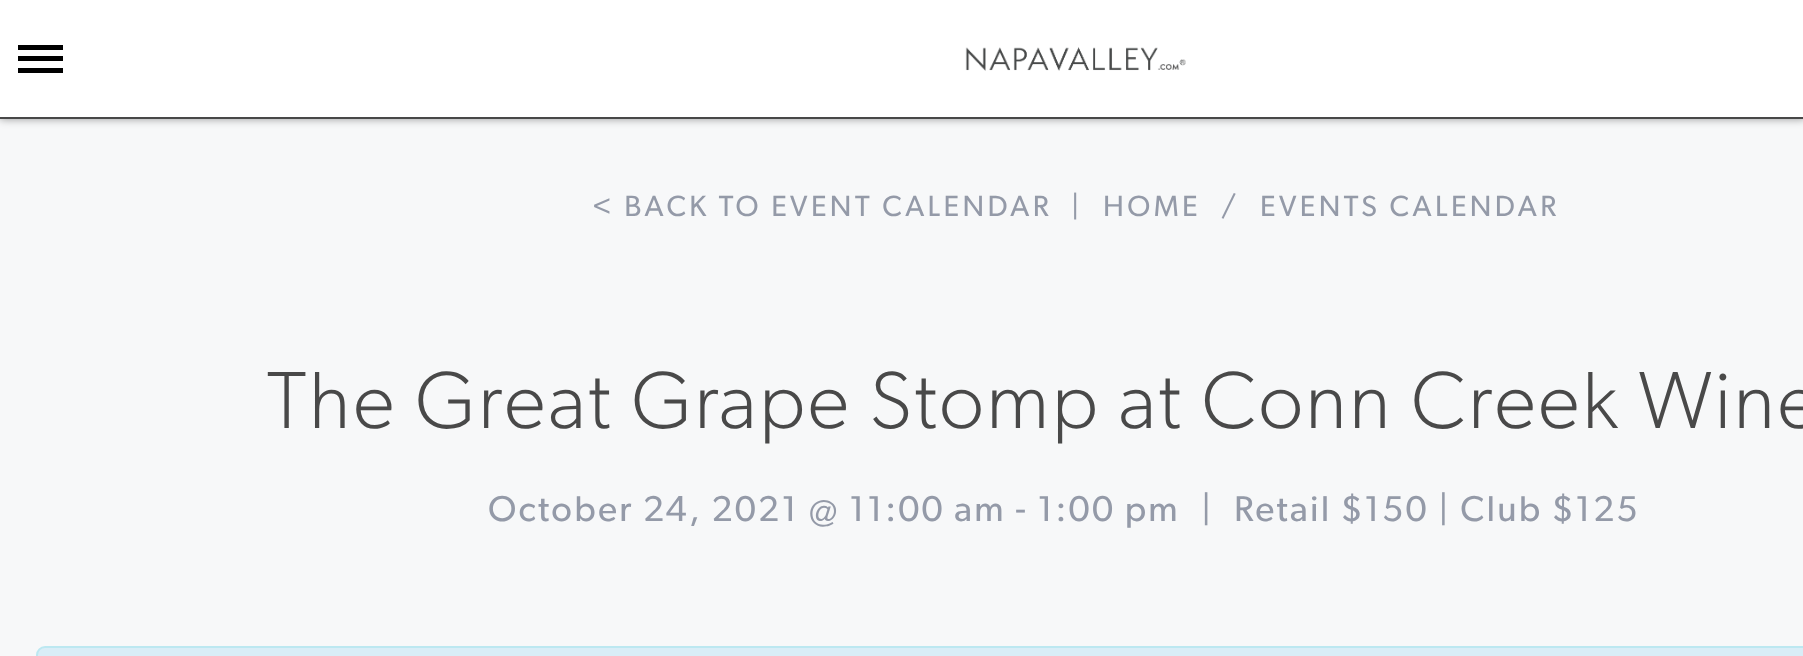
<?xml version="1.0" encoding="UTF-8"?>
<svg xmlns="http://www.w3.org/2000/svg" xmlns:xlink="http://www.w3.org/1999/xlink" width="1803" height="656">
  <rect width="100%" height="100%" fill="#f7f8f9" />
  <rect width="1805" height="119" fill="#000000" fill-opacity="0.4" filter="blur(4.5px)" />
  <rect width="1803" height="117" fill="#ffffff" />
  <rect y="117" width="1803" height="2" fill="#484848" />
  <rect x="18" y="45" width="45" height="5" fill="#000000" />
  <rect x="18" y="56" width="45" height="5" fill="#000000" />
  <rect x="18" y="68" width="45" height="5" fill="#000000" />
  <image x="965" y="47" width="221" height="24" xlink:href="image1.png" />
  <rect x="37" y="647" width="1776" height="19" rx="8" fill="#d9edf7" stroke="#bce8f1" stroke-width="2" />
  <text x="592" y="216" style="font-family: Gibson; font-size: 29.25px; letter-spacing: 3.4px; fill: #949aa8">&lt; BACK TO EVENT CALENDAR</text>
  <text x="1071" y="216" style="font-family: Gibson; font-size: 29.25px; letter-spacing: 3.4px; fill: #949aa8">|</text>
  <text x="1103" y="216" style="font-family: Gibson; font-size: 29.25px; letter-spacing: 3.4px; fill: #949aa8">HOME</text>
  <text x="1221" y="216" style="font-family: Gibson; font-size: 29.25px; letter-spacing: 3.4px; fill: #949aa8">/</text>
  <text x="1260" y="216" style="font-family: Gibson; font-size: 29.25px; letter-spacing: 3.4px; fill: #949aa8">EVENTS CALENDAR</text>
  <text x="267" y="428" style="font-family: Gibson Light; font-size: 81px; font-weight: 300; letter-spacing: 2.25px; fill: #494949">The Great Grape Stomp at Conn Creek Wine</text>
  <text x="488" y="521" style="font-family: Gibson; font-size: 36px; letter-spacing: 2.25px; fill: #949aa8">October 24, 2021 @ 11:00 am - 1:00 pm</text>
  <text x="1201" y="521" style="font-family: Gibson; font-size: 36px; letter-spacing: 2.25px; fill: #949aa8">|</text>
  <text x="1234" y="521" style="font-family: Gibson; font-size: 36px; letter-spacing: 2.25px; fill: #949aa8">Retail $150 | Club $125</text>
</svg>
